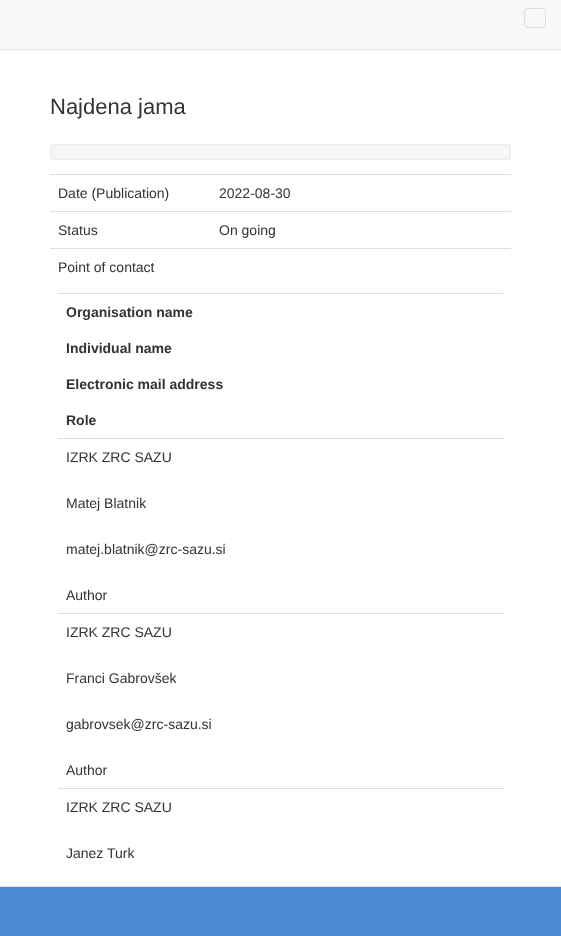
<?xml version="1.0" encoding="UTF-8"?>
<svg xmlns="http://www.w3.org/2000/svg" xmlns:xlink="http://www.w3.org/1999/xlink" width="561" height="936">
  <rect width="100%" height="100%" fill="#ffffff" />
  <rect width="561" height="49" fill="#f8f8f8" />
  <rect y="49" width="561" height="1" fill="#e7e7e7" />
  <rect x="524.5" y="8.5" width="21" height="19" rx="3.5" fill="none" stroke="#dddddd" />
  <rect x="50.5" y="144.5" width="460" height="15" rx="1.5" fill="#f5f6f6" stroke="#ebecec" />
  <rect x="50" y="174" width="461" height="1" fill="#dddddd" />
  <rect x="50" y="211" width="461" height="1" fill="#dddddd" />
  <rect x="50" y="248" width="461" height="1" fill="#dddddd" />
  <rect x="58" y="293" width="445" height="1" fill="#dddddd" />
  <rect x="58" y="438" width="446" height="1" fill="#dddddd" />
  <rect x="58" y="613" width="446" height="1" fill="#dddddd" />
  <rect x="58" y="788" width="446" height="1" fill="#dddddd" />
  <rect y="887" width="561" height="49" fill="#4d8ad2" />
  <rect y="886" width="561" height="1" fill="#e7e7e7" />
  <text x="50" y="114" style="font-family: Liberation Sans; font-size: 22px; fill: #333333">Najdena jama</text>
  <text x="58" y="198" style="font-family: Liberation Sans; font-size: 14px; fill: #333333">Date (Publication)</text>
  <text x="219" y="198" style="font-family: Liberation Sans; font-size: 14px; fill: #333333">2022-08-30</text>
  <text x="58" y="235" style="font-family: Liberation Sans; font-size: 14px; fill: #333333">Status</text>
  <text x="219" y="235" style="font-family: Liberation Sans; font-size: 14px; fill: #333333">On going</text>
  <text x="58" y="272" style="font-family: Liberation Sans; font-size: 14px; fill: #333333">Point of contact</text>
  <text x="66" y="317" style="font-family: Liberation Sans; font-size: 14px; font-weight: bold; fill: #333333">Organisation name</text>
  <text x="66" y="353" style="font-family: Liberation Sans; font-size: 14px; font-weight: bold; fill: #333333">Individual name</text>
  <text x="66" y="389" style="font-family: Liberation Sans; font-size: 14px; font-weight: bold; fill: #333333">Electronic mail address</text>
  <text x="66" y="425" style="font-family: Liberation Sans; font-size: 14px; font-weight: bold; fill: #333333">Role</text>
  <text x="66" y="462" style="font-family: Liberation Sans; font-size: 14px; fill: #333333">IZRK ZRC SAZU</text>
  <text x="66" y="508" style="font-family: Liberation Sans; font-size: 14px; fill: #333333">Matej Blatnik</text>
  <text x="66" y="554" style="font-family: Liberation Sans; font-size: 14px; fill: #333333">matej.blatnik@zrc-sazu.si</text>
  <text x="66" y="600" style="font-family: Liberation Sans; font-size: 14px; fill: #333333">Author</text>
  <text x="66" y="637" style="font-family: Liberation Sans; font-size: 14px; fill: #333333">IZRK ZRC SAZU</text>
  <text x="66" y="683" style="font-family: Liberation Sans; font-size: 14px; fill: #333333">Franci Gabrovšek</text>
  <text x="66" y="729" style="font-family: Liberation Sans; font-size: 14px; fill: #333333">gabrovsek@zrc-sazu.si</text>
  <text x="66" y="775" style="font-family: Liberation Sans; font-size: 14px; fill: #333333">Author</text>
  <text x="66" y="812" style="font-family: Liberation Sans; font-size: 14px; fill: #333333">IZRK ZRC SAZU</text>
  <text x="66" y="858" style="font-family: Liberation Sans; font-size: 14px; fill: #333333">Janez Turk</text>
</svg>
